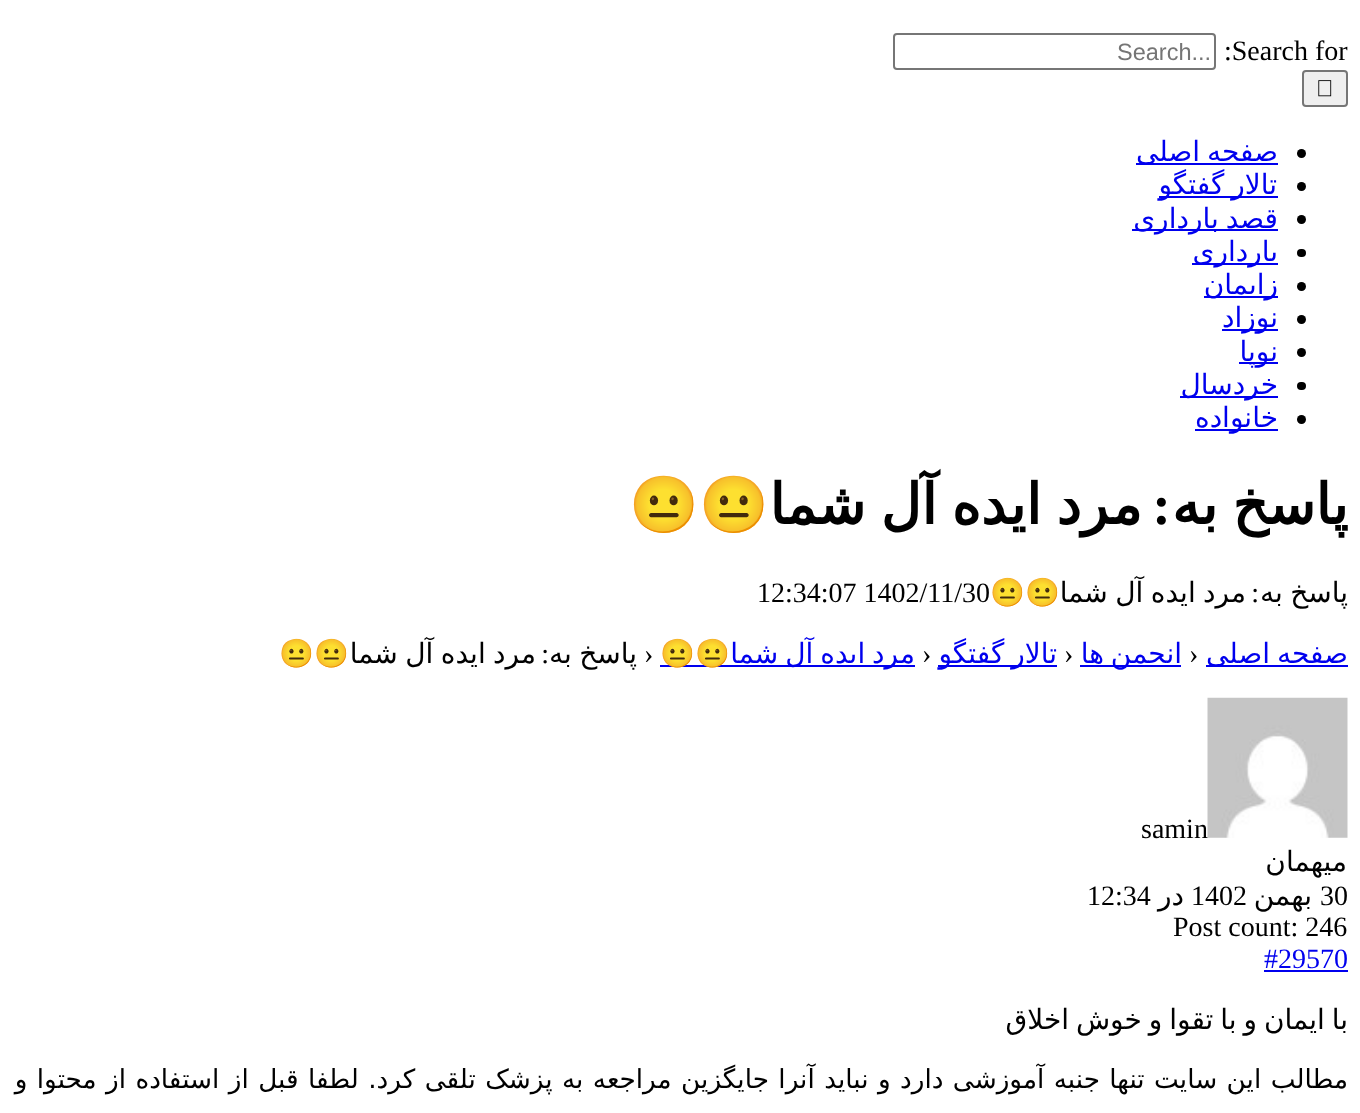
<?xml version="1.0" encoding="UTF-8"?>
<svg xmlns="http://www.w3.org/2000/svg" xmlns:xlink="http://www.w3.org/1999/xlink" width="1360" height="1113">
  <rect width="100%" height="100%" fill="#ffffff" />
  <rect x="894" y="34" width="321" height="35" rx="3" fill="none" stroke="#767676" stroke-width="2" />
  <rect x="1303" y="71" width="44" height="35" rx="3" fill="#efefef" stroke="#767676" stroke-width="2" />
  <image x="1318" y="80" width="14" height="17" xlink:href="image1.png" />
  <circle cx="1301.5" cy="153.5" r="4.5" fill="#000000" />
  <rect x="1136" y="163" width="142" height="2" fill="#0000ee" />
  <circle cx="1301.5" cy="186.5" r="4.5" fill="#000000" />
  <rect x="1159" y="196" width="119" height="2" fill="#0000ee" />
  <circle cx="1301.5" cy="219.5" r="4.5" fill="#000000" />
  <rect x="1132" y="229" width="146" height="2" fill="#0000ee" />
  <rect x="1297" y="249" width="9" height="8" rx="4" fill="#000000" />
  <rect x="1192" y="263" width="86" height="2" fill="#0000ee" />
  <circle cx="1301.5" cy="286.5" r="4.5" fill="#000000" />
  <rect x="1204" y="296" width="74" height="2" fill="#0000ee" />
  <circle cx="1301.5" cy="319.5" r="4.5" fill="#000000" />
  <rect x="1222" y="329" width="56" height="2" fill="#0000ee" />
  <circle cx="1301.5" cy="352.5" r="4.5" fill="#000000" />
  <rect x="1239" y="362" width="39" height="2" fill="#0000ee" />
  <rect x="1297" y="382" width="9" height="8" rx="4" fill="#000000" />
  <rect x="1180" y="396" width="98" height="2" fill="#0000ee" />
  <circle cx="1301.5" cy="419.5" r="4.5" fill="#000000" />
  <rect x="1195" y="429" width="83" height="2" fill="#0000ee" />
  <rect x="1206" y="665" width="142" height="2" fill="#0000ee" />
  <rect x="1080" y="665" width="101" height="2" fill="#0000ee" />
  <rect x="938" y="665" width="119" height="2" fill="#0000ee" />
  <rect x="660" y="665" width="255" height="2" fill="#0000ee" />
  <image x="1207" y="697" width="141" height="141" xlink:href="image2.png" />
  <rect x="1264" y="970" width="84" height="2" fill="#0000ee" />
  <text x="1224" y="60" style="font-family: Liberation Serif; font-size: 28px; fill: #000000">:Search for</text>
  <text x="1117" y="60" style="font-family: Liberation Sans; font-size: 23.5px; fill: #757575">Search...</text>
  <text x="1278" y="161" word-spacing="-2" style="font-family: DejaVu Sans; font-size: 28px; direction: rtl; fill: #0000ee">صفحه اصلی</text>
  <text x="1277" y="194" word-spacing="-2" style="font-family: DejaVu Sans; font-size: 28px; direction: rtl; fill: #0000ee">تالار گفتگو</text>
  <text x="1278" y="228" word-spacing="-2" style="font-family: DejaVu Sans; font-size: 28px; direction: rtl; fill: #0000ee">قصد بارداری</text>
  <text x="1278" y="261" style="font-family: DejaVu Sans; font-size: 28px; direction: rtl; fill: #0000ee">بارداری</text>
  <text x="1278" y="294" style="font-family: DejaVu Sans; font-size: 28px; direction: rtl; fill: #0000ee">زایمان</text>
  <text x="1278" y="327" style="font-family: DejaVu Sans; font-size: 28px; direction: rtl; fill: #0000ee">نوزاد</text>
  <text x="1278" y="361" style="font-family: DejaVu Sans; font-size: 28px; direction: rtl; fill: #0000ee">نوپا</text>
  <text x="1278" y="394" style="font-family: DejaVu Sans; font-size: 28px; direction: rtl; fill: #0000ee">خردسال</text>
  <text x="1278" y="427" style="font-family: DejaVu Sans; font-size: 28px; direction: rtl; fill: #0000ee">خانواده</text>
  <text x="1348" y="524" word-spacing="-3" style="font-family: DejaVu Sans; font-size: 56px; font-weight: bold; direction: rtl; fill: #000000">پاسخ به</text>
  <text x="1171" y="524" style="font-family: Liberation Serif; font-size: 56px; font-weight: bold; direction: rtl; fill: #000000">:</text>
  <text x="1142" y="524" word-spacing="-3" style="font-family: DejaVu Sans; font-size: 56px; font-weight: bold; direction: rtl; fill: #000000">مرد ایده آل شما</text>
  <text x="769" y="524" style="font-family: Noto Color Emoji; font-size: 56px; font-weight: bold; direction: rtl; fill: #000000">😐😐</text>
  <text x="1348" y="602" word-spacing="-1.5" style="font-family: DejaVu Sans; font-size: 28px; direction: rtl; fill: #000000">پاسخ به</text>
  <text x="1259" y="602" style="font-family: Liberation Serif; font-size: 28px; direction: rtl; fill: #000000">:</text>
  <text x="1246" y="602" word-spacing="-1.5" style="font-family: DejaVu Sans; font-size: 28px; direction: rtl; fill: #000000">مرد ایده آل شما</text>
  <text x="1060" y="602" style="font-family: Noto Color Emoji; font-size: 28px; direction: rtl; fill: #000000">😐😐</text>
  <text x="757" y="602" style="font-family: Liberation Serif; font-size: 28px; fill: #000000">12:34:07 1402/11/30</text>
  <text x="1348" y="663" word-spacing="-2" style="font-family: DejaVu Sans; font-size: 28px; direction: rtl; fill: #0000ee">صفحه اصلی</text>
  <text x="1189" y="663" style="font-family: Liberation Serif; font-size: 28px; fill: #000000">›</text>
  <text x="1182" y="663" word-spacing="-2" style="font-family: DejaVu Sans; font-size: 28px; direction: rtl; fill: #0000ee">انجمن ها</text>
  <text x="1064" y="663" style="font-family: Liberation Serif; font-size: 28px; fill: #000000">›</text>
  <text x="1057" y="663" word-spacing="-2" style="font-family: DejaVu Sans; font-size: 28px; direction: rtl; fill: #0000ee">تالار گفتگو</text>
  <text x="922" y="663" style="font-family: Liberation Serif; font-size: 28px; fill: #000000">›</text>
  <text x="915" y="663" word-spacing="-2" style="font-family: DejaVu Sans; font-size: 28px; direction: rtl; fill: #0000ee">مرد ایده آل شما</text>
  <text x="730" y="663" style="font-family: Noto Color Emoji; font-size: 28px; direction: rtl; fill: #0000ee">😐😐</text>
  <text x="644" y="663" style="font-family: Liberation Serif; font-size: 28px; fill: #000000">›</text>
  <text x="637" y="663" word-spacing="-1.5" style="font-family: DejaVu Sans; font-size: 28px; direction: rtl; fill: #000000">پاسخ به</text>
  <text x="549" y="663" style="font-family: Liberation Serif; font-size: 28px; direction: rtl; fill: #000000">:</text>
  <text x="536" y="663" word-spacing="-1.5" style="font-family: DejaVu Sans; font-size: 28px; direction: rtl; fill: #000000">مرد ایده آل شما</text>
  <text x="349" y="663" style="font-family: Noto Color Emoji; font-size: 28px; direction: rtl; fill: #000000">😐😐</text>
  <text x="1141" y="838" style="font-family: Liberation Serif; font-size: 28px; fill: #000000">samin</text>
  <text x="1347" y="871" style="font-family: DejaVu Sans; font-size: 28px; direction: rtl; fill: #000000">میهمان</text>
  <text x="1320" y="905" style="font-family: Liberation Serif; font-size: 28px; fill: #000000">30</text>
  <text x="1312" y="905" style="font-family: DejaVu Sans; font-size: 28px; direction: rtl; fill: #000000">بهمن</text>
  <text x="1191" y="905" style="font-family: Liberation Serif; font-size: 28px; fill: #000000">1402</text>
  <text x="1184" y="905" style="font-family: DejaVu Sans; font-size: 28px; direction: rtl; fill: #000000">در</text>
  <text x="1087" y="905" style="font-family: Liberation Serif; font-size: 28px; fill: #000000">12:34</text>
  <text x="1173" y="936" style="font-family: Liberation Serif; font-size: 28px; fill: #000000">Post count: 246</text>
  <text x="1264" y="968" style="font-family: Liberation Serif; font-size: 28px; fill: #0000ee">#29570</text>
  <text x="1348" y="1029" word-spacing="-2" style="font-family: DejaVu Sans; font-size: 28px; direction: rtl; fill: #000000">با ایمان و با تقوا و خوش اخلاق</text>
  <text x="1348" y="1088" word-spacing="1.1" style="font-family: DejaVu Sans; font-size: 26.25px; direction: rtl; fill: #000000">مطالب اين سایت تنها جنبه آموزشی دارد و نباید آنرا جایگزین مراجعه به پزشک تلقی کرد. لطفا قبل از استفاده از محتوا و</text>
</svg>
